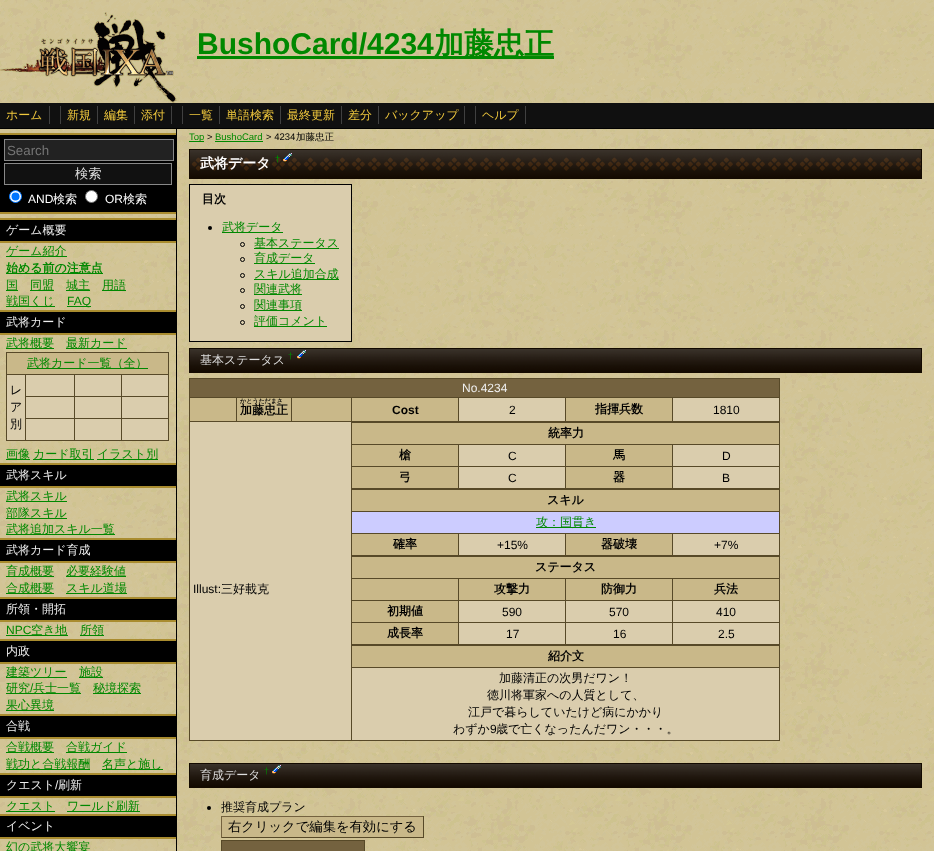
<?xml version="1.0" encoding="UTF-8"?>
<svg xmlns="http://www.w3.org/2000/svg" xmlns:xlink="http://www.w3.org/1999/xlink" width="934" height="851">
  <rect width="100%" height="100%" fill="#ffffff" />
  <image x="0" y="0" width="934" height="851" xlink:href="image1.png" />
  <image x="0" y="12" width="177" height="91" xlink:href="image2.png" />
  <rect x="197" y="56" width="357" height="3" fill="#008800" />
  <rect y="103" width="934" height="25" fill="#101010" />
  <rect x="49" y="106" width="1" height="18" fill="#404040" />
  <rect x="60" y="106" width="1" height="18" fill="#404040" />
  <rect x="97" y="106" width="1" height="18" fill="#404040" />
  <rect x="134" y="106" width="1" height="18" fill="#404040" />
  <rect x="171" y="106" width="1" height="18" fill="#404040" />
  <rect x="182" y="106" width="1" height="18" fill="#404040" />
  <rect x="219" y="106" width="1" height="18" fill="#404040" />
  <rect x="280" y="106" width="1" height="18" fill="#404040" />
  <rect x="341" y="106" width="1" height="18" fill="#404040" />
  <rect x="378" y="106" width="1" height="18" fill="#404040" />
  <rect x="464" y="106" width="1" height="18" fill="#404040" />
  <rect x="475" y="106" width="1" height="18" fill="#404040" />
  <rect x="525" y="106" width="1" height="18" fill="#404040" />
  <rect y="128" width="934" height="1" fill="#000000" />
  <rect x="176" y="129" width="1" height="722" fill="#000000" />
  <rect y="135" width="176" height="77" fill="#000000" />
  <rect y="133" width="176" height="2" fill="#a98c2f" />
  <rect y="212" width="176" height="2" fill="#a98c2f" />
  <rect x="4.5" y="139.5" width="169" height="21" fill="#222222" stroke="#888888" />
  <rect x="4.5" y="163.5" width="167" height="21" fill="#111111" stroke="#888888" />
  <circle cx="15.5" cy="196.5" r="6" fill="#ffffff" stroke="#0075ff" />
  <circle cx="15.5" cy="196.5" r="4" fill="#0075ff" />
  <circle cx="91.5" cy="196.5" r="6" fill="#ffffff" stroke="#767676" />
  <rect y="220" width="176" height="21" fill="#000000" />
  <rect y="218" width="176" height="2" fill="#a98c2f" />
  <rect y="241" width="176" height="2" fill="#a98c2f" />
  <rect x="6" y="256" width="61" height="1" fill="#008800" />
  <rect x="6" y="273" width="97" height="1" fill="#008800" />
  <rect x="6" y="290" width="12" height="1" fill="#008800" />
  <rect x="30" y="290" width="24" height="1" fill="#008800" />
  <rect x="66" y="290" width="24" height="1" fill="#008800" />
  <rect x="102" y="290" width="24" height="1" fill="#008800" />
  <rect x="6" y="306" width="49" height="1" fill="#008800" />
  <rect x="67" y="306" width="24" height="1" fill="#008800" />
  <rect y="312" width="176" height="21" fill="#000000" />
  <rect y="310" width="176" height="2" fill="#a98c2f" />
  <rect y="333" width="176" height="2" fill="#a98c2f" />
  <rect x="6" y="348" width="48" height="1" fill="#008800" />
  <rect x="66" y="348" width="61" height="1" fill="#008800" />
  <rect x="6" y="352" width="163" height="89" fill="#574928" />
  <rect x="7" y="353" width="161" height="21" fill="#c9b889" />
  <rect x="27" y="368" width="121" height="1" fill="#008800" />
  <rect x="7" y="375" width="18" height="65" fill="#dacdad" />
  <rect x="26" y="375" width="48" height="21" fill="#dacdad" />
  <rect x="75" y="375" width="46" height="21" fill="#dacdad" />
  <rect x="122" y="375" width="46" height="21" fill="#dacdad" />
  <rect x="26" y="397" width="48" height="21" fill="#dacdad" />
  <rect x="75" y="397" width="46" height="21" fill="#dacdad" />
  <rect x="122" y="397" width="46" height="21" fill="#dacdad" />
  <rect x="26" y="419" width="48" height="21" fill="#dacdad" />
  <rect x="75" y="419" width="46" height="21" fill="#dacdad" />
  <rect x="122" y="419" width="46" height="21" fill="#dacdad" />
  <rect x="6" y="459" width="24" height="1" fill="#008800" />
  <rect x="33" y="459" width="61" height="1" fill="#008800" />
  <rect x="97" y="459" width="61" height="1" fill="#008800" />
  <rect y="465" width="176" height="21" fill="#000000" />
  <rect y="463" width="176" height="2" fill="#a98c2f" />
  <rect y="486" width="176" height="2" fill="#a98c2f" />
  <rect x="6" y="501" width="61" height="1" fill="#008800" />
  <rect x="6" y="518" width="61" height="1" fill="#008800" />
  <rect x="6" y="534" width="109" height="1" fill="#008800" />
  <rect y="540" width="176" height="21" fill="#000000" />
  <rect y="538" width="176" height="2" fill="#a98c2f" />
  <rect y="561" width="176" height="2" fill="#a98c2f" />
  <rect x="6" y="576" width="48" height="1" fill="#008800" />
  <rect x="66" y="576" width="60" height="1" fill="#008800" />
  <rect x="6" y="593" width="48" height="1" fill="#008800" />
  <rect x="66" y="593" width="61" height="1" fill="#008800" />
  <rect y="599" width="176" height="21" fill="#000000" />
  <rect y="597" width="176" height="2" fill="#a98c2f" />
  <rect y="620" width="176" height="2" fill="#a98c2f" />
  <rect x="6" y="635" width="62" height="1" fill="#008800" />
  <rect x="80" y="635" width="24" height="1" fill="#008800" />
  <rect y="641" width="176" height="21" fill="#000000" />
  <rect y="639" width="176" height="2" fill="#a98c2f" />
  <rect y="662" width="176" height="2" fill="#a98c2f" />
  <rect x="6" y="677" width="61" height="1" fill="#008800" />
  <rect x="79" y="677" width="24" height="1" fill="#008800" />
  <rect x="6" y="693" width="75" height="1" fill="#008800" />
  <rect x="93" y="693" width="48" height="1" fill="#008800" />
  <rect x="6" y="710" width="48" height="1" fill="#008800" />
  <rect y="716" width="176" height="21" fill="#000000" />
  <rect y="714" width="176" height="2" fill="#a98c2f" />
  <rect y="737" width="176" height="2" fill="#a98c2f" />
  <rect x="6" y="752" width="48" height="1" fill="#008800" />
  <rect x="66" y="752" width="61" height="1" fill="#008800" />
  <rect x="6" y="769" width="84" height="1" fill="#008800" />
  <rect x="102" y="769" width="61" height="1" fill="#008800" />
  <rect y="775" width="176" height="21" fill="#000000" />
  <rect y="773" width="176" height="2" fill="#a98c2f" />
  <rect y="796" width="176" height="2" fill="#a98c2f" />
  <rect x="6" y="811" width="49" height="1" fill="#008800" />
  <rect x="67" y="811" width="73" height="1" fill="#008800" />
  <rect y="816" width="176" height="21" fill="#000000" />
  <rect y="814" width="176" height="2" fill="#a98c2f" />
  <rect y="837" width="176" height="2" fill="#a98c2f" />
  <rect x="189" y="141" width="15" height="1" fill="#008800" />
  <rect x="215" y="141" width="48" height="1" fill="#008800" />
  <image x="190" y="150" width="731" height="28" xlink:href="image3.png" />
  <rect x="189.5" y="149.5" width="732" height="29" fill="none" stroke="#130a00" />
  <image x="283" y="153" width="9" height="9" xlink:href="image4.png" />
  <rect x="189.5" y="184.5" width="162" height="157" fill="none" stroke="#000000" />
  <rect x="190" y="185" width="161" height="156" fill="#dacdad" />
  <circle cx="210" cy="228" r="2" fill="#000000" />
  <rect x="222" y="232" width="61" height="1" fill="#008800" />
  <circle cx="242.5" cy="244.5" r="2" fill="none" stroke="#000000" />
  <rect x="254" y="248" width="85" height="1" fill="#008800" />
  <circle cx="242.5" cy="259.5" r="2" fill="none" stroke="#000000" />
  <rect x="254" y="263" width="61" height="1" fill="#008800" />
  <circle cx="242.5" cy="275.5" r="2" fill="none" stroke="#000000" />
  <rect x="254" y="279" width="85" height="1" fill="#008800" />
  <circle cx="242.5" cy="290.5" r="2" fill="none" stroke="#000000" />
  <rect x="254" y="294" width="48" height="1" fill="#008800" />
  <circle cx="242.5" cy="306.5" r="2" fill="none" stroke="#000000" />
  <rect x="254" y="310" width="48" height="1" fill="#008800" />
  <circle cx="242.5" cy="322.5" r="2" fill="none" stroke="#000000" />
  <rect x="254" y="326" width="73" height="1" fill="#008800" />
  <image x="190" y="349" width="731" height="23" xlink:href="image5.png" />
  <rect x="189.5" y="348.5" width="732" height="24" fill="none" stroke="#130a00" />
  <image x="297" y="350" width="9" height="9" xlink:href="image6.png" />
  <rect x="189" y="378" width="591" height="363" fill="#574928" />
  <rect x="190" y="379" width="589" height="18" fill="#74623f" />
  <rect x="190" y="398" width="46" height="23" fill="#c9b889" />
  <rect x="237" y="398" width="54" height="23" fill="#c9b889" />
  <rect x="292" y="398" width="59" height="23" fill="#c9b889" />
  <rect x="352" y="398" width="106" height="23" fill="#c9b889" />
  <rect x="459" y="398" width="106" height="23" fill="#dacdad" />
  <rect x="566" y="398" width="106" height="23" fill="#c9b889" />
  <rect x="673" y="398" width="106" height="23" fill="#dacdad" />
  <rect x="352" y="423" width="427" height="21" fill="#c9b889" />
  <rect x="352" y="445" width="106" height="21" fill="#c9b889" />
  <rect x="459" y="445" width="106" height="21" fill="#dacdad" />
  <rect x="566" y="445" width="106" height="21" fill="#c9b889" />
  <rect x="673" y="445" width="106" height="21" fill="#dacdad" />
  <rect x="352" y="467" width="106" height="21" fill="#c9b889" />
  <rect x="459" y="467" width="106" height="21" fill="#dacdad" />
  <rect x="566" y="467" width="106" height="21" fill="#c9b889" />
  <rect x="673" y="467" width="106" height="21" fill="#dacdad" />
  <rect x="352" y="490" width="427" height="21" fill="#c9b889" />
  <rect x="352" y="512" width="427" height="21" fill="#ccccff" />
  <rect x="536" y="527" width="60" height="1" fill="#008800" />
  <rect x="352" y="534" width="106" height="21" fill="#c9b889" />
  <rect x="459" y="534" width="106" height="21" fill="#dacdad" />
  <rect x="566" y="534" width="106" height="21" fill="#c9b889" />
  <rect x="673" y="534" width="106" height="21" fill="#dacdad" />
  <rect x="352" y="557" width="427" height="21" fill="#c9b889" />
  <rect x="190" y="422" width="161" height="318" fill="#dacdad" />
  <rect x="352" y="579" width="106" height="21" fill="#c9b889" />
  <rect x="459" y="579" width="106" height="21" fill="#c9b889" />
  <rect x="566" y="579" width="106" height="21" fill="#c9b889" />
  <rect x="673" y="579" width="106" height="21" fill="#c9b889" />
  <rect x="352" y="601" width="106" height="21" fill="#c9b889" />
  <rect x="459" y="601" width="106" height="21" fill="#dacdad" />
  <rect x="566" y="601" width="106" height="21" fill="#dacdad" />
  <rect x="673" y="601" width="106" height="21" fill="#dacdad" />
  <rect x="352" y="623" width="106" height="21" fill="#c9b889" />
  <rect x="459" y="623" width="106" height="21" fill="#dacdad" />
  <rect x="566" y="623" width="106" height="21" fill="#dacdad" />
  <rect x="673" y="623" width="106" height="21" fill="#dacdad" />
  <rect x="352" y="646" width="427" height="21" fill="#c9b889" />
  <rect x="352" y="668" width="427" height="72" fill="#dacdad" />
  <image x="190" y="764" width="731" height="23" xlink:href="image5.png" />
  <rect x="189.5" y="763.5" width="732" height="24" fill="none" stroke="#130a00" />
  <image x="272" y="765" width="9" height="9" xlink:href="image7.png" />
  <circle cx="209" cy="808" r="2" fill="#000000" />
  <rect x="222" y="817" width="201" height="20" fill="#c9b889" />
  <rect x="221" y="816" width="203" height="1" fill="#74623f" />
  <rect x="423" y="816" width="1" height="22" fill="#574928" />
  <rect x="221" y="837" width="203" height="1" fill="#574928" />
  <rect x="221" y="816" width="1" height="22" fill="#74623f" />
  <rect x="221" y="840" width="144" height="11" fill="#574928" />
  <rect x="222" y="841" width="142" height="10" fill="#74623f" />
  <text x="197" y="54" style="font-family: Liberation Sans; font-size: 30px; font-weight: bold; fill: #008800">BushoCard/4234</text>
  <text x="434" y="54" style="font-family: WenQuanYi Zen Hei; font-size: 30px; font-weight: bold; fill: #008800">加藤忠正</text>
  <text x="6" y="119" style="font-family: WenQuanYi Zen Hei; font-size: 12px; font-weight: 500; fill: #f0c83d">ホーム</text>
  <text x="67" y="119" style="font-family: WenQuanYi Zen Hei; font-size: 12px; font-weight: 500; fill: #f0c83d">新規</text>
  <text x="104" y="119" style="font-family: WenQuanYi Zen Hei; font-size: 12px; font-weight: 500; fill: #f0c83d">編集</text>
  <text x="141" y="119" style="font-family: WenQuanYi Zen Hei; font-size: 12px; font-weight: 500; fill: #f0c83d">添付</text>
  <text x="189" y="119" style="font-family: WenQuanYi Zen Hei; font-size: 12px; font-weight: 500; fill: #f0c83d">一覧</text>
  <text x="226" y="119" style="font-family: WenQuanYi Zen Hei; font-size: 12px; font-weight: 500; fill: #f0c83d">単語検索</text>
  <text x="287" y="119" style="font-family: WenQuanYi Zen Hei; font-size: 12px; font-weight: 500; fill: #f0c83d">最終更新</text>
  <text x="348" y="119" style="font-family: WenQuanYi Zen Hei; font-size: 12px; font-weight: 500; fill: #f0c83d">差分</text>
  <text x="385" y="119" style="font-family: WenQuanYi Zen Hei; font-size: 12px; font-weight: 500; fill: #f0c83d">バックアップ</text>
  <text x="482" y="119" style="font-family: WenQuanYi Zen Hei; font-size: 12px; font-weight: 500; fill: #f0c83d">ヘルプ</text>
  <text x="7" y="155" style="font-family: Liberation Sans; font-size: 13.3px; fill: #757575">Search</text>
  <text x="75" y="178" style="font-family: WenQuanYi Zen Hei; font-size: 13.3px; font-weight: 500; fill: #dddddd">検索</text>
  <text x="28" y="203" style="font-family: Liberation Sans; font-size: 12px; fill: #ffffff">AND</text>
  <text x="53" y="203" style="font-family: WenQuanYi Zen Hei; font-size: 12px; font-weight: 500; fill: #ffffff">検索</text>
  <text x="105" y="203" style="font-family: Liberation Sans; font-size: 12px; fill: #ffffff">OR</text>
  <text x="123" y="203" style="font-family: WenQuanYi Zen Hei; font-size: 12px; font-weight: 500; fill: #ffffff">検索</text>
  <text x="6" y="234" style="font-family: WenQuanYi Zen Hei; font-size: 12px; font-weight: 500; fill: #eeeeee">ゲーム概要</text>
  <text x="6" y="255" style="font-family: WenQuanYi Zen Hei; font-size: 12px; font-weight: 500; fill: #008800">ゲーム紹介</text>
  <text x="6" y="272" style="font-family: WenQuanYi Zen Hei; font-size: 12px; font-weight: bold; fill: #008800">始める前の注意点</text>
  <text x="6" y="289" style="font-family: WenQuanYi Zen Hei; font-size: 12px; font-weight: 500; fill: #008800">国</text>
  <text x="30" y="289" style="font-family: WenQuanYi Zen Hei; font-size: 12px; font-weight: 500; fill: #008800">同盟</text>
  <text x="66" y="289" style="font-family: WenQuanYi Zen Hei; font-size: 12px; font-weight: 500; fill: #008800">城主</text>
  <text x="102" y="289" style="font-family: WenQuanYi Zen Hei; font-size: 12px; font-weight: 500; fill: #008800">用語</text>
  <text x="6" y="305" style="font-family: WenQuanYi Zen Hei; font-size: 12px; font-weight: 500; fill: #008800">戦国くじ</text>
  <text x="67" y="305" style="font-family: Liberation Sans; font-size: 12px; fill: #008800">FAQ</text>
  <text x="6" y="326" style="font-family: WenQuanYi Zen Hei; font-size: 12px; font-weight: 500; fill: #eeeeee">武将カード</text>
  <text x="6" y="347" style="font-family: WenQuanYi Zen Hei; font-size: 12px; font-weight: 500; fill: #008800">武将概要</text>
  <text x="66" y="347" style="font-family: WenQuanYi Zen Hei; font-size: 12px; font-weight: 500; fill: #008800">最新カード</text>
  <text x="27" y="367" style="font-family: WenQuanYi Zen Hei; font-size: 12px; font-weight: 500; fill: #008800">武将カード一覧（全）</text>
  <text x="10" y="394" style="font-family: WenQuanYi Zen Hei; font-size: 12px; font-weight: 500; fill: #000000">レ</text>
  <text x="10" y="411" style="font-family: WenQuanYi Zen Hei; font-size: 12px; font-weight: 500; fill: #000000">ア</text>
  <text x="10" y="428" style="font-family: WenQuanYi Zen Hei; font-size: 12px; font-weight: 500; fill: #000000">別</text>
  <text x="6" y="458" style="font-family: WenQuanYi Zen Hei; font-size: 12px; font-weight: 500; fill: #008800">画像</text>
  <text x="33" y="458" style="font-family: WenQuanYi Zen Hei; font-size: 12px; font-weight: 500; fill: #008800">カード取引</text>
  <text x="97" y="458" style="font-family: WenQuanYi Zen Hei; font-size: 12px; font-weight: 500; fill: #008800">イラスト別</text>
  <text x="6" y="479" style="font-family: WenQuanYi Zen Hei; font-size: 12px; font-weight: 500; fill: #eeeeee">武将スキル</text>
  <text x="6" y="500" style="font-family: WenQuanYi Zen Hei; font-size: 12px; font-weight: 500; fill: #008800">武将スキル</text>
  <text x="6" y="517" style="font-family: WenQuanYi Zen Hei; font-size: 12px; font-weight: 500; fill: #008800">部隊スキル</text>
  <text x="6" y="533" style="font-family: WenQuanYi Zen Hei; font-size: 12px; font-weight: 500; fill: #008800">武将追加スキル一覧</text>
  <text x="6" y="554" style="font-family: WenQuanYi Zen Hei; font-size: 12px; font-weight: 500; fill: #eeeeee">武将カード育成</text>
  <text x="6" y="575" style="font-family: WenQuanYi Zen Hei; font-size: 12px; font-weight: 500; fill: #008800">育成概要</text>
  <text x="66" y="575" style="font-family: WenQuanYi Zen Hei; font-size: 12px; font-weight: 500; fill: #008800">必要経験値</text>
  <text x="6" y="592" style="font-family: WenQuanYi Zen Hei; font-size: 12px; font-weight: 500; fill: #008800">合成概要</text>
  <text x="66" y="592" style="font-family: WenQuanYi Zen Hei; font-size: 12px; font-weight: 500; fill: #008800">スキル道場</text>
  <text x="6" y="613" style="font-family: WenQuanYi Zen Hei; font-size: 12px; font-weight: 500; fill: #eeeeee">所領・開拓</text>
  <text x="6" y="634" style="font-family: Liberation Sans; font-size: 12px; fill: #008800">NPC</text>
  <text x="31" y="634" style="font-family: WenQuanYi Zen Hei; font-size: 12px; font-weight: 500; fill: #008800">空き地</text>
  <text x="80" y="634" style="font-family: WenQuanYi Zen Hei; font-size: 12px; font-weight: 500; fill: #008800">所領</text>
  <text x="6" y="655" style="font-family: WenQuanYi Zen Hei; font-size: 12px; font-weight: 500; fill: #eeeeee">内政</text>
  <text x="6" y="676" style="font-family: WenQuanYi Zen Hei; font-size: 12px; font-weight: 500; fill: #008800">建築ツリー</text>
  <text x="79" y="676" style="font-family: WenQuanYi Zen Hei; font-size: 12px; font-weight: 500; fill: #008800">施設</text>
  <text x="6" y="692" style="font-family: WenQuanYi Zen Hei; font-size: 12px; font-weight: 500; fill: #008800">研究</text>
  <text x="30" y="692" style="font-family: Liberation Sans; font-size: 12px; fill: #008800">/</text>
  <text x="33" y="692" style="font-family: WenQuanYi Zen Hei; font-size: 12px; font-weight: 500; fill: #008800">兵士一覧</text>
  <text x="93" y="692" style="font-family: WenQuanYi Zen Hei; font-size: 12px; font-weight: 500; fill: #008800">秘境探索</text>
  <text x="6" y="709" style="font-family: WenQuanYi Zen Hei; font-size: 12px; font-weight: 500; fill: #008800">果心異境</text>
  <text x="6" y="730" style="font-family: WenQuanYi Zen Hei; font-size: 12px; font-weight: 500; fill: #eeeeee">合戦</text>
  <text x="6" y="751" style="font-family: WenQuanYi Zen Hei; font-size: 12px; font-weight: 500; fill: #008800">合戦概要</text>
  <text x="66" y="751" style="font-family: WenQuanYi Zen Hei; font-size: 12px; font-weight: 500; fill: #008800">合戦ガイド</text>
  <text x="6" y="768" style="font-family: WenQuanYi Zen Hei; font-size: 12px; font-weight: 500; fill: #008800">戦功と合戦報酬</text>
  <text x="102" y="768" style="font-family: WenQuanYi Zen Hei; font-size: 12px; font-weight: 500; fill: #008800">名声と施し</text>
  <text x="6" y="789" style="font-family: WenQuanYi Zen Hei; font-size: 12px; font-weight: 500; fill: #eeeeee">クエスト</text>
  <text x="55" y="789" style="font-family: Liberation Sans; font-size: 12px; fill: #eeeeee">/</text>
  <text x="58" y="789" style="font-family: WenQuanYi Zen Hei; font-size: 12px; font-weight: 500; fill: #eeeeee">刷新</text>
  <text x="6" y="810" style="font-family: WenQuanYi Zen Hei; font-size: 12px; font-weight: 500; fill: #008800">クエスト</text>
  <text x="67" y="810" style="font-family: WenQuanYi Zen Hei; font-size: 12px; font-weight: 500; fill: #008800">ワールド刷新</text>
  <text x="6" y="830" style="font-family: WenQuanYi Zen Hei; font-size: 12px; font-weight: 500; fill: #eeeeee">イベント</text>
  <text x="6" y="851" style="font-family: WenQuanYi Zen Hei; font-size: 12px; font-weight: 500; fill: #008800">幻の武将大饗宴</text>
  <text x="189" y="140" style="font-family: Liberation Sans; font-size: 9.5px; fill: #008800">Top</text>
  <text x="207" y="140" style="font-family: Liberation Sans; font-size: 9.5px; fill: #000000">&gt;</text>
  <text x="215" y="140" style="font-family: Liberation Sans; font-size: 9.5px; fill: #008800">BushoCard</text>
  <text x="266" y="140" style="font-family: Liberation Sans; font-size: 9.5px; fill: #000000">&gt; 4234</text>
  <text x="296" y="140" style="font-family: WenQuanYi Zen Hei; font-size: 9.5px; font-weight: 500; fill: #000000">加藤忠正</text>
  <text x="200" y="168" style="font-family: WenQuanYi Zen Hei; font-size: 14px; font-weight: bold; fill: #ffffff">武将データ</text>
  <text x="275" y="162" style="font-family: Liberation Sans; font-size: 9px; font-weight: bold; fill: #008800">†</text>
  <text x="202" y="203" style="font-family: WenQuanYi Zen Hei; font-size: 12px; font-weight: bold; fill: #000000">目次</text>
  <text x="222" y="231" style="font-family: WenQuanYi Zen Hei; font-size: 12px; font-weight: 500; fill: #008800">武将データ</text>
  <text x="254" y="247" style="font-family: WenQuanYi Zen Hei; font-size: 12px; font-weight: 500; fill: #008800">基本ステータス</text>
  <text x="254" y="262" style="font-family: WenQuanYi Zen Hei; font-size: 12px; font-weight: 500; fill: #008800">育成データ</text>
  <text x="254" y="278" style="font-family: WenQuanYi Zen Hei; font-size: 12px; font-weight: 500; fill: #008800">スキル追加合成</text>
  <text x="254" y="293" style="font-family: WenQuanYi Zen Hei; font-size: 12px; font-weight: 500; fill: #008800">関連武将</text>
  <text x="254" y="309" style="font-family: WenQuanYi Zen Hei; font-size: 12px; font-weight: 500; fill: #008800">関連事項</text>
  <text x="254" y="325" style="font-family: WenQuanYi Zen Hei; font-size: 12px; font-weight: 500; fill: #008800">評価コメント</text>
  <text x="200" y="364" style="font-family: WenQuanYi Zen Hei; font-size: 12px; font-weight: 500; fill: #dddddd">基本ステータス</text>
  <text x="288" y="359" style="font-family: Liberation Sans; font-size: 9px; fill: #008800">†</text>
  <text x="462" y="392" style="font-family: Liberation Sans; font-size: 12px; fill: #eeeeee">No.4234</text>
  <text x="240" y="403" style="font-family: WenQuanYi Zen Hei; font-size: 6px; font-weight: bold; fill: #000000">かとうただまさ</text>
  <text x="240" y="414" style="font-family: WenQuanYi Zen Hei; font-size: 12px; font-weight: bold; fill: #000000">加藤忠正</text>
  <text x="392" y="414" style="font-family: Liberation Sans; font-size: 12px; font-weight: bold; fill: #000000">Cost</text>
  <text x="509" y="414" style="font-family: Liberation Sans; font-size: 12px; fill: #000000">2</text>
  <text x="595" y="413" style="font-family: WenQuanYi Zen Hei; font-size: 12px; font-weight: bold; fill: #000000">指揮兵数</text>
  <text x="713" y="414" style="font-family: Liberation Sans; font-size: 12px; fill: #000000">1810</text>
  <text x="548" y="437" style="font-family: WenQuanYi Zen Hei; font-size: 12px; font-weight: bold; fill: #000000">統率力</text>
  <text x="399" y="459" style="font-family: WenQuanYi Zen Hei; font-size: 12px; font-weight: bold; fill: #000000">槍</text>
  <text x="508" y="460" style="font-family: Liberation Sans; font-size: 12px; fill: #000000">C</text>
  <text x="613" y="459" style="font-family: WenQuanYi Zen Hei; font-size: 12px; font-weight: bold; fill: #000000">馬</text>
  <text x="722" y="460" style="font-family: Liberation Sans; font-size: 12px; fill: #000000">D</text>
  <text x="399" y="481" style="font-family: WenQuanYi Zen Hei; font-size: 12px; font-weight: bold; fill: #000000">弓</text>
  <text x="508" y="482" style="font-family: Liberation Sans; font-size: 12px; fill: #000000">C</text>
  <text x="613" y="481" style="font-family: WenQuanYi Zen Hei; font-size: 12px; font-weight: bold; fill: #000000">器</text>
  <text x="722" y="482" style="font-family: Liberation Sans; font-size: 12px; fill: #000000">B</text>
  <text x="547" y="504" style="font-family: WenQuanYi Zen Hei; font-size: 12px; font-weight: bold; fill: #000000">スキル</text>
  <text x="536" y="526" style="font-family: WenQuanYi Zen Hei; font-size: 12px; font-weight: 500; fill: #008800">攻：国貫き</text>
  <text x="393" y="548" style="font-family: WenQuanYi Zen Hei; font-size: 12px; font-weight: bold; fill: #000000">確率</text>
  <text x="497" y="549" style="font-family: Liberation Sans; font-size: 12px; fill: #000000">+15%</text>
  <text x="601" y="548" style="font-family: WenQuanYi Zen Hei; font-size: 12px; font-weight: bold; fill: #000000">器破壊</text>
  <text x="714" y="549" style="font-family: Liberation Sans; font-size: 12px; fill: #000000">+7%</text>
  <text x="535" y="571" style="font-family: WenQuanYi Zen Hei; font-size: 12px; font-weight: bold; fill: #000000">ステータス</text>
  <text x="193" y="593" style="font-family: Liberation Sans; font-size: 12px; fill: #000000">Illust:</text>
  <text x="221" y="593" style="font-family: WenQuanYi Zen Hei; font-size: 12px; font-weight: 500; fill: #000000">三好載克</text>
  <text x="494" y="593" style="font-family: WenQuanYi Zen Hei; font-size: 12px; font-weight: bold; fill: #000000">攻撃力</text>
  <text x="601" y="593" style="font-family: WenQuanYi Zen Hei; font-size: 12px; font-weight: bold; fill: #000000">防御力</text>
  <text x="714" y="593" style="font-family: WenQuanYi Zen Hei; font-size: 12px; font-weight: bold; fill: #000000">兵法</text>
  <text x="387" y="615" style="font-family: WenQuanYi Zen Hei; font-size: 12px; font-weight: bold; fill: #000000">初期値</text>
  <text x="502" y="616" style="font-family: Liberation Sans; font-size: 12px; fill: #000000">590</text>
  <text x="609" y="616" style="font-family: Liberation Sans; font-size: 12px; fill: #000000">570</text>
  <text x="716" y="616" style="font-family: Liberation Sans; font-size: 12px; fill: #000000">410</text>
  <text x="387" y="637" style="font-family: WenQuanYi Zen Hei; font-size: 12px; font-weight: bold; fill: #000000">成長率</text>
  <text x="506" y="638" style="font-family: Liberation Sans; font-size: 12px; fill: #000000">17</text>
  <text x="613" y="638" style="font-family: Liberation Sans; font-size: 12px; fill: #000000">16</text>
  <text x="718" y="638" style="font-family: Liberation Sans; font-size: 12px; fill: #000000">2.5</text>
  <text x="548" y="660" style="font-family: WenQuanYi Zen Hei; font-size: 12px; font-weight: bold; fill: #000000">紹介文</text>
  <text x="499" y="682" style="font-family: WenQuanYi Zen Hei; font-size: 12px; font-weight: 500; fill: #000000">加藤清正の次男だワン！</text>
  <text x="487" y="699" style="font-family: WenQuanYi Zen Hei; font-size: 12px; font-weight: 500; fill: #000000">徳川将軍家への人質として、</text>
  <text x="468" y="716" style="font-family: WenQuanYi Zen Hei; font-size: 12px; font-weight: 500; fill: #000000">江戸で暮らしていたけど病にかかり</text>
  <text x="453" y="733" style="font-family: WenQuanYi Zen Hei; font-size: 12px; font-weight: 500; fill: #000000">わずか</text>
  <text x="490" y="733" style="font-family: Liberation Sans; font-size: 12px; fill: #000000">9</text>
  <text x="496" y="733" style="font-family: WenQuanYi Zen Hei; font-size: 12px; font-weight: 500; fill: #000000">歳で亡くなったんだワン・・・。</text>
  <text x="200" y="779" style="font-family: WenQuanYi Zen Hei; font-size: 12px; font-weight: 500; fill: #dddddd">育成データ</text>
  <text x="264" y="774" style="font-family: Liberation Sans; font-size: 9px; fill: #008800">†</text>
  <text x="221" y="811" style="font-family: WenQuanYi Zen Hei; font-size: 12px; font-weight: 500; fill: #000000">推奨育成プラン</text>
  <text x="228" y="831" style="font-family: WenQuanYi Zen Hei; font-size: 13.3px; font-weight: 500; fill: #000000">右クリックで編集を有効にする</text>
</svg>
